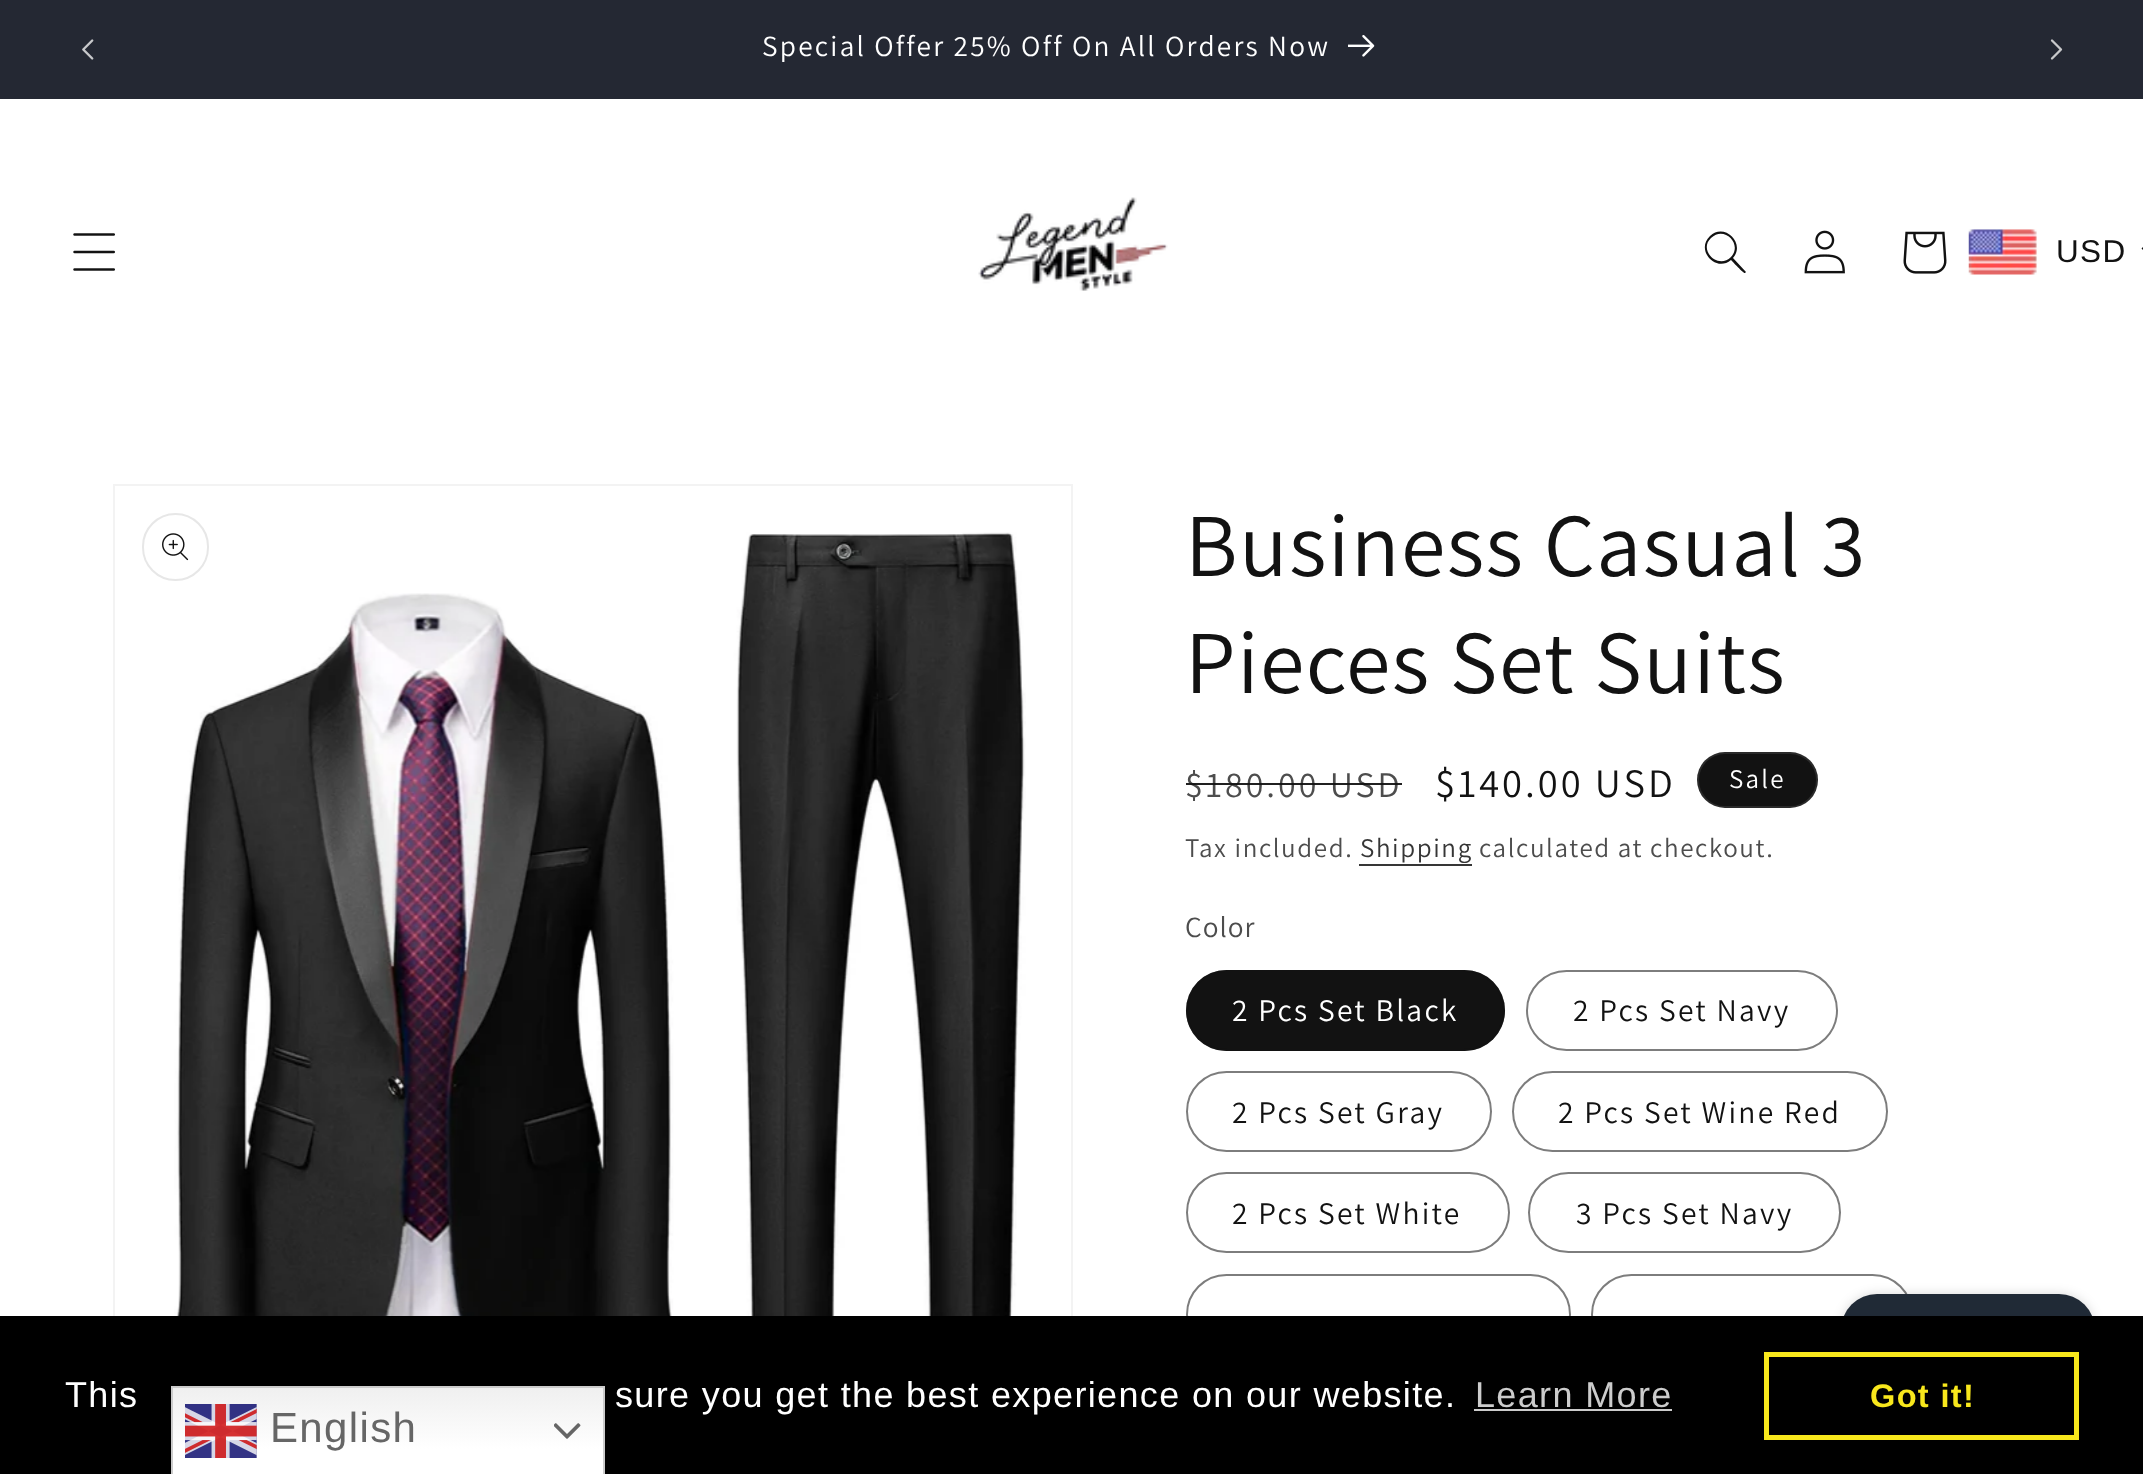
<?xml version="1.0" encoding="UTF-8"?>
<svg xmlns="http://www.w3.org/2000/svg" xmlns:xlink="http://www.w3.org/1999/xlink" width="2143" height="1474">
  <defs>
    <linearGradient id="g1" gradientUnits="userSpaceOnUse" x1="388" y1="1386" x2="388" y2="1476"><stop offset="0" stop-color="#efefef" /><stop offset="0.7" stop-color="#ffffff" /></linearGradient>
  </defs>
  <rect width="100%" height="100%" fill="#ffffff" />
  <rect width="2143" height="99" fill="#242833" />
  <image x="82" y="39" width="12" height="21" xlink:href="image1.png" />
  <image x="1348" y="35" width="27" height="22" xlink:href="image2.png" />
  <image x="2050" y="39" width="13" height="21" xlink:href="image3.png" />
  <image x="73" y="233" width="42" height="38" xlink:href="image4.png" />
  <image x="978" y="197" width="190" height="94" xlink:href="image5.png" />
  <path d="M 1731 257 c -13 13 -33 -7 -20 -19 c 13 -13 32 6 20 19 z m 0 3 c -15 13 -36 -10 -21 -24 c 14 -14 36 7 23 22 l 13 14 l -1 1 c -1 1 -12 -11 -14 -13 z" fill="#121212" fill-rule="evenodd" />
  <image x="1804" y="230" width="41" height="44" xlink:href="image6.png" />
  <image x="1903" y="231" width="44" height="43" xlink:href="image7.png" />
  <image x="1968" y="229" width="69" height="46" xlink:href="image8.png" />
  <path d="M 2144.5 245.5 l 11 11 l -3 3.5 l -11 -11.5 z" fill="#121212" />
  <rect x="114" y="485" width="958" height="959" fill="none" stroke="#f3f3f3" stroke-width="2" />
  <image x="174" y="532" width="852" height="784" xlink:href="image10.png" />
  <rect x="143" y="514" width="65" height="66" rx="32.5" fill="none" stroke="#e7e7e7" stroke-width="2" />
  <image x="162" y="533" width="27" height="28" xlink:href="image9.png" />
  <rect x="1697" y="752" width="121" height="56" rx="28" fill="#121212" />
  <rect x="1698" y="753" width="119" height="54" rx="27" fill="none" stroke="#ffffff" stroke-opacity="0.1" stroke-width="2" />
  <rect x="1359" y="864" width="113" height="2" fill="#363636" />
  <rect x="1186" y="970" width="319" height="81" rx="40.5" fill="#121212" />
  <rect x="1187" y="971" width="317" height="79" rx="39.5" fill="none" stroke="#121212" stroke-opacity="0.55" stroke-width="2" />
  <rect x="1527" y="971" width="310" height="79" rx="39.5" fill="none" stroke="#7d7d7d" stroke-width="2" />
  <rect x="1187" y="1072" width="304" height="79" rx="39.5" fill="none" stroke="#7d7d7d" stroke-width="2" />
  <rect x="1513" y="1072" width="374" height="79" rx="39.5" fill="none" stroke="#7d7d7d" stroke-width="2" />
  <rect x="1187" y="1173" width="322" height="79" rx="39.5" fill="none" stroke="#7d7d7d" stroke-width="2" />
  <rect x="1529" y="1173" width="311" height="79" rx="39.5" fill="none" stroke="#7d7d7d" stroke-width="2" />
  <rect x="1187" y="1275" width="383" height="79" rx="39.5" fill="none" stroke="#7d7d7d" stroke-width="2" />
  <rect x="1592" y="1275" width="320" height="79" rx="39.5" fill="none" stroke="#7d7d7d" stroke-width="2" />
  <rect x="1841" y="1294" width="254" height="135" rx="36" fill="#000000" fill-opacity="0.15" filter="blur(5.5px)" />
  <rect x="1841" y="1294" width="254" height="135" rx="36" fill="#202a36" />
  <rect y="1316" width="2143" height="158" fill="#000000" />
  <rect x="1474" y="1409" width="198" height="2" fill="#cccccc" />
  <rect x="1766.5" y="1354.5" width="310" height="83" fill="none" stroke="#f8e71c" stroke-width="5" />
  <rect x="173" y="1388" width="430" height="86" fill="url(#g1)" />
  <rect x="172" y="1387" width="432" height="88" fill="none" stroke="#cccccc" stroke-width="2" />
  <image x="185" y="1404" width="72" height="54" xlink:href="image11.png" />
  <image x="554" y="1423" width="27" height="16" xlink:href="image12.png" />
  <text x="762" y="56" style="font-family: Assistant; font-size: 29.25px; letter-spacing: 2.25px; fill: #ffffff">Special Offer 25% Off On All Orders Now</text>
  <text x="2056" y="262" style="font-family: Liberation Sans; font-size: 31.5px; letter-spacing: 1.35px; fill: #121212">USD</text>
  <text x="1185" y="576" style="font-family: Assistant; font-size: 90px; letter-spacing: 1.35px; fill: #121212">Business Casual 3</text>
  <text x="1185" y="693" style="font-family: Assistant; font-size: 90px; letter-spacing: 1.35px; fill: #121212">Pieces Set Suits</text>
  <text x="1185" y="797" style="font-family: Assistant; font-size: 36px; letter-spacing: 3px; fill: #4d4d4d">$180.00 USD</text>
  <rect x="1186" y="783" width="216" height="2" fill="#121212" fill-opacity="0.75" />
  <rect x="1186" y="783" width="216" height="2" fill="#121212" fill-opacity="0.75" />
  <text x="1435" y="797" style="font-family: Assistant; font-size: 40.5px; letter-spacing: 3px; fill: #121212">$140.00 USD</text>
  <text x="1729" y="788" style="font-family: Assistant; font-size: 27px; letter-spacing: 2.25px; fill: #ffffff">Sale</text>
  <text x="1185" y="857" style="font-family: Assistant; font-size: 27px; letter-spacing: 1.6px; fill: #4d4d4d">Tax included.</text>
  <text x="1360" y="857" style="font-family: Assistant; font-size: 27px; letter-spacing: 1.6px; fill: #363636">Shipping</text>
  <text x="1479" y="857" style="font-family: Assistant; font-size: 27px; letter-spacing: 1.6px; fill: #4d4d4d">calculated at checkout.</text>
  <text x="1185" y="937" style="font-family: Assistant; font-size: 29.25px; letter-spacing: 1px; fill: #4d4d4d">Color</text>
  <text x="1232" y="1021" style="font-family: Assistant; font-size: 31.5px; letter-spacing: 2.25px; fill: #ffffff">2 Pcs Set Black</text>
  <text x="1573" y="1021" style="font-family: Assistant; font-size: 31.5px; letter-spacing: 2.25px; fill: #121212">2 Pcs Set Navy</text>
  <text x="1232" y="1123" style="font-family: Assistant; font-size: 31.5px; letter-spacing: 2.25px; fill: #121212">2 Pcs Set Gray</text>
  <text x="1558" y="1123" style="font-family: Assistant; font-size: 31.5px; letter-spacing: 2.25px; fill: #121212">2 Pcs Set Wine Red</text>
  <text x="1232" y="1224" style="font-family: Assistant; font-size: 31.5px; letter-spacing: 2.25px; fill: #121212">2 Pcs Set White</text>
  <text x="1576" y="1224" style="font-family: Assistant; font-size: 31.5px; letter-spacing: 2.25px; fill: #121212">3 Pcs Set Navy</text>
  <text x="65" y="1407" style="font-family: Liberation Sans; font-size: 36px; letter-spacing: 1.35px; fill: #ffffff">This</text>
  <text x="615" y="1407" style="font-family: Liberation Sans; font-size: 36px; letter-spacing: 1.35px; fill: #ffffff">sure you get the best experience on our website.</text>
  <text x="1475" y="1407" style="font-family: Liberation Sans; font-size: 36px; letter-spacing: 1.35px; fill: #cccccc">Learn More</text>
  <text x="1870" y="1407" style="font-family: Liberation Sans; font-size: 32.5px; font-weight: bold; letter-spacing: 1.35px; fill: #f8e71c">Got it!</text>
  <text x="270" y="1442" style="font-family: Liberation Sans; font-size: 42px; letter-spacing: 1.35px; fill: #666666">English</text>
</svg>
